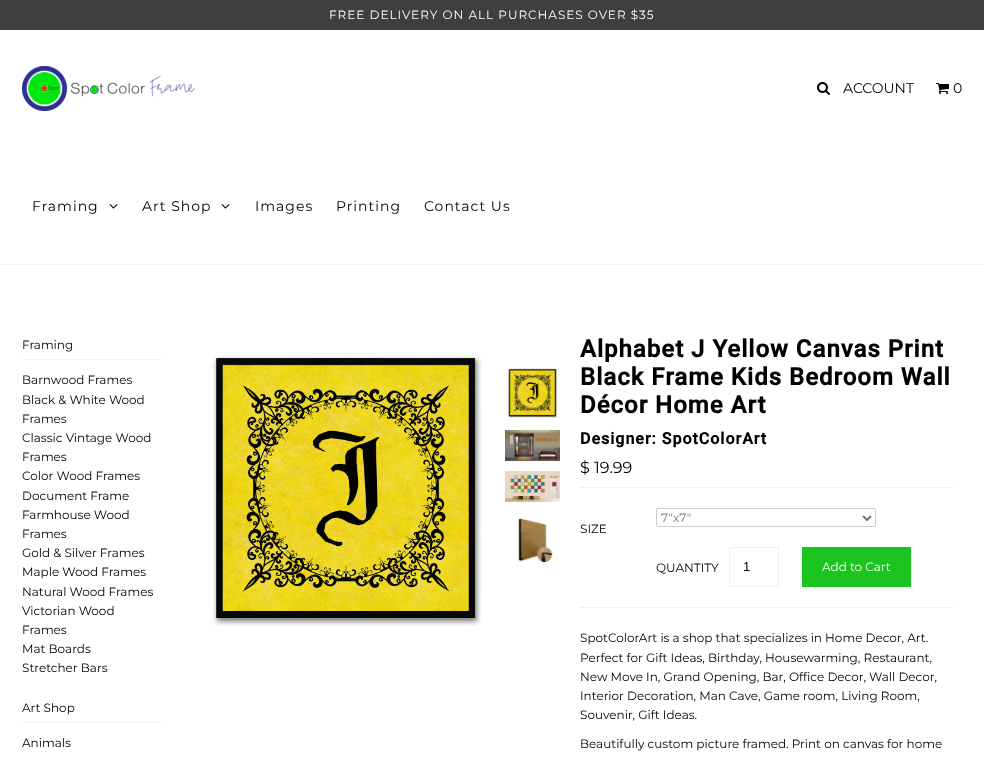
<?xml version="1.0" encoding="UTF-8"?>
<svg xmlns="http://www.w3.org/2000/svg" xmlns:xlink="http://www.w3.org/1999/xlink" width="984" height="759">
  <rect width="100%" height="100%" fill="#ffffff" />
  <rect y="264" width="984" height="1" fill="#f0f0f0" />
  <rect width="984" height="30" fill="#3f3f3f" />
  <image x="817" y="82" width="13" height="13" xlink:href="image1.png" />
  <image x="936" y="83" width="13" height="11" xlink:href="image2.png" />
  <image x="22" y="66" width="173" height="45" xlink:href="image3.png" />
  <image x="109" y="204" width="9" height="5" xlink:href="image4.png" />
  <image x="221" y="204" width="9" height="5" xlink:href="image4.png" />
  <rect x="22" y="359" width="140" height="1" fill="#f0f0f0" />
  <rect x="22" y="722" width="140" height="1" fill="#f0f0f0" />
  <image x="212" y="355" width="271" height="272" xlink:href="image5.png" />
  <image x="508" y="368" width="50" height="50" xlink:href="image6.png" />
  <image x="505" y="430" width="55" height="31" xlink:href="image7.png" />
  <image x="505" y="471" width="55" height="31" xlink:href="image8.png" />
  <image x="518" y="518" width="35" height="45" xlink:href="image9.png" />
  <rect x="580" y="487" width="374" height="1" fill="#f0f0f0" />
  <rect x="580" y="607" width="374" height="1" fill="#f0f0f0" />
  <rect x="656.5" y="508.5" width="219" height="18" rx="1.5" fill="none" stroke="#cccccc" />
  <path d="M 863 516 l 4 4 l 4 -4" fill="none" stroke="#777777" stroke-width="2" />
  <rect x="729.5" y="547.5" width="49" height="39" fill="none" stroke="#f0f0f0" />
  <rect x="802" y="547" width="109" height="40" fill="#1cc420" />
  <text x="329" y="19" style="font-family: Montserrat; font-size: 12px; letter-spacing: 1px; fill: #ffffff">FREE DELIVERY ON ALL PURCHASES OVER $35</text>
  <text x="843" y="93" style="font-family: Montserrat; font-size: 14px; fill: #000000">ACCOUNT</text>
  <text x="953" y="93" style="font-family: Montserrat; font-size: 14px; fill: #000000">0</text>
  <text x="32" y="211" style="font-family: Montserrat; font-size: 14px; letter-spacing: 1px; fill: #000000">Framing</text>
  <text x="142" y="211" style="font-family: Montserrat; font-size: 14px; letter-spacing: 1px; fill: #000000">Art Shop</text>
  <text x="255" y="211" style="font-family: Montserrat; font-size: 14px; letter-spacing: 1px; fill: #000000">Images</text>
  <text x="336" y="211" style="font-family: Montserrat; font-size: 14px; letter-spacing: 1px; fill: #000000">Printing</text>
  <text x="424" y="211" style="font-family: Montserrat; font-size: 14px; letter-spacing: 1px; fill: #000000">Contact Us</text>
  <text x="22" y="349" style="font-family: Montserrat; font-size: 12px; fill: #000000">Framing</text>
  <text x="22" y="384" style="font-family: Montserrat; font-size: 12px; fill: #000000">Barnwood Frames</text>
  <text x="22" y="404" style="font-family: Montserrat; font-size: 12px; fill: #000000">Black &amp; White Wood</text>
  <text x="22" y="423" style="font-family: Montserrat; font-size: 12px; fill: #000000">Frames</text>
  <text x="22" y="442" style="font-family: Montserrat; font-size: 12px; fill: #000000">Classic Vintage Wood</text>
  <text x="22" y="461" style="font-family: Montserrat; font-size: 12px; fill: #000000">Frames</text>
  <text x="22" y="480" style="font-family: Montserrat; font-size: 12px; fill: #000000">Color Wood Frames</text>
  <text x="22" y="500" style="font-family: Montserrat; font-size: 12px; fill: #000000">Document Frame</text>
  <text x="22" y="519" style="font-family: Montserrat; font-size: 12px; fill: #000000">Farmhouse Wood</text>
  <text x="22" y="538" style="font-family: Montserrat; font-size: 12px; fill: #000000">Frames</text>
  <text x="22" y="557" style="font-family: Montserrat; font-size: 12px; fill: #000000">Gold &amp; Silver Frames</text>
  <text x="22" y="576" style="font-family: Montserrat; font-size: 12px; fill: #000000">Maple Wood Frames</text>
  <text x="22" y="596" style="font-family: Montserrat; font-size: 12px; fill: #000000">Natural Wood Frames</text>
  <text x="22" y="615" style="font-family: Montserrat; font-size: 12px; fill: #000000">Victorian Wood</text>
  <text x="22" y="634" style="font-family: Montserrat; font-size: 12px; fill: #000000">Frames</text>
  <text x="22" y="653" style="font-family: Montserrat; font-size: 12px; fill: #000000">Mat Boards</text>
  <text x="22" y="672" style="font-family: Montserrat; font-size: 12px; fill: #000000">Stretcher Bars</text>
  <text x="22" y="712" style="font-family: Montserrat; font-size: 12px; fill: #000000">Art Shop</text>
  <text x="22" y="747" style="font-family: Montserrat; font-size: 12px; fill: #000000">Animals</text>
  <text x="580" y="357" style="font-family: Roboto; font-size: 24px; font-weight: bold; letter-spacing: 1px; fill: #000000">Alphabet J Yellow Canvas Print</text>
  <text x="580" y="385" style="font-family: Roboto; font-size: 24px; font-weight: bold; letter-spacing: 1px; fill: #000000">Black Frame Kids Bedroom Wall</text>
  <text x="580" y="413" style="font-family: Roboto; font-size: 24px; font-weight: bold; letter-spacing: 1px; fill: #000000">Décor Home Art</text>
  <text x="580" y="444" style="font-family: Roboto; font-size: 16px; font-weight: bold; letter-spacing: 1px; fill: #000000">Designer: SpotColorArt</text>
  <text x="580" y="473" style="font-family: Montserrat; font-size: 16px; fill: #000000">$ 19.99</text>
  <text x="661" y="522" style="font-family: Montserrat; font-size: 12px; fill: #777777">7"x7"</text>
  <text x="580" y="533" style="font-family: Montserrat; font-size: 12px; fill: #000000">SIZE</text>
  <text x="656" y="572" style="font-family: Montserrat; font-size: 12px; fill: #000000">QUANTITY</text>
  <text x="743" y="571" style="font-family: Liberation Sans; font-size: 13px; fill: #000000">1</text>
  <text x="822" y="571" style="font-family: Montserrat; font-size: 12px; fill: #ffffff">Add to Cart</text>
  <text x="580" y="642" style="font-family: Montserrat; font-size: 12px; fill: #000000">SpotColorArt is a shop that specializes in Home Decor, Art.</text>
  <text x="580" y="662" style="font-family: Montserrat; font-size: 12px; fill: #000000">Perfect for Gift Ideas, Birthday, Housewarming, Restaurant,</text>
  <text x="580" y="681" style="font-family: Montserrat; font-size: 12px; fill: #000000">New Move In, Grand Opening, Bar, Office Decor, Wall Decor,</text>
  <text x="580" y="700" style="font-family: Montserrat; font-size: 12px; fill: #000000">Interior Decoration, Man Cave, Game room, Living Room,</text>
  <text x="580" y="719" style="font-family: Montserrat; font-size: 12px; fill: #000000">Souvenir, Gift Ideas.</text>
  <text x="580" y="748" style="font-family: Montserrat; font-size: 12px; fill: #000000">Beautifully custom picture framed. Print on canvas for home</text>
</svg>
